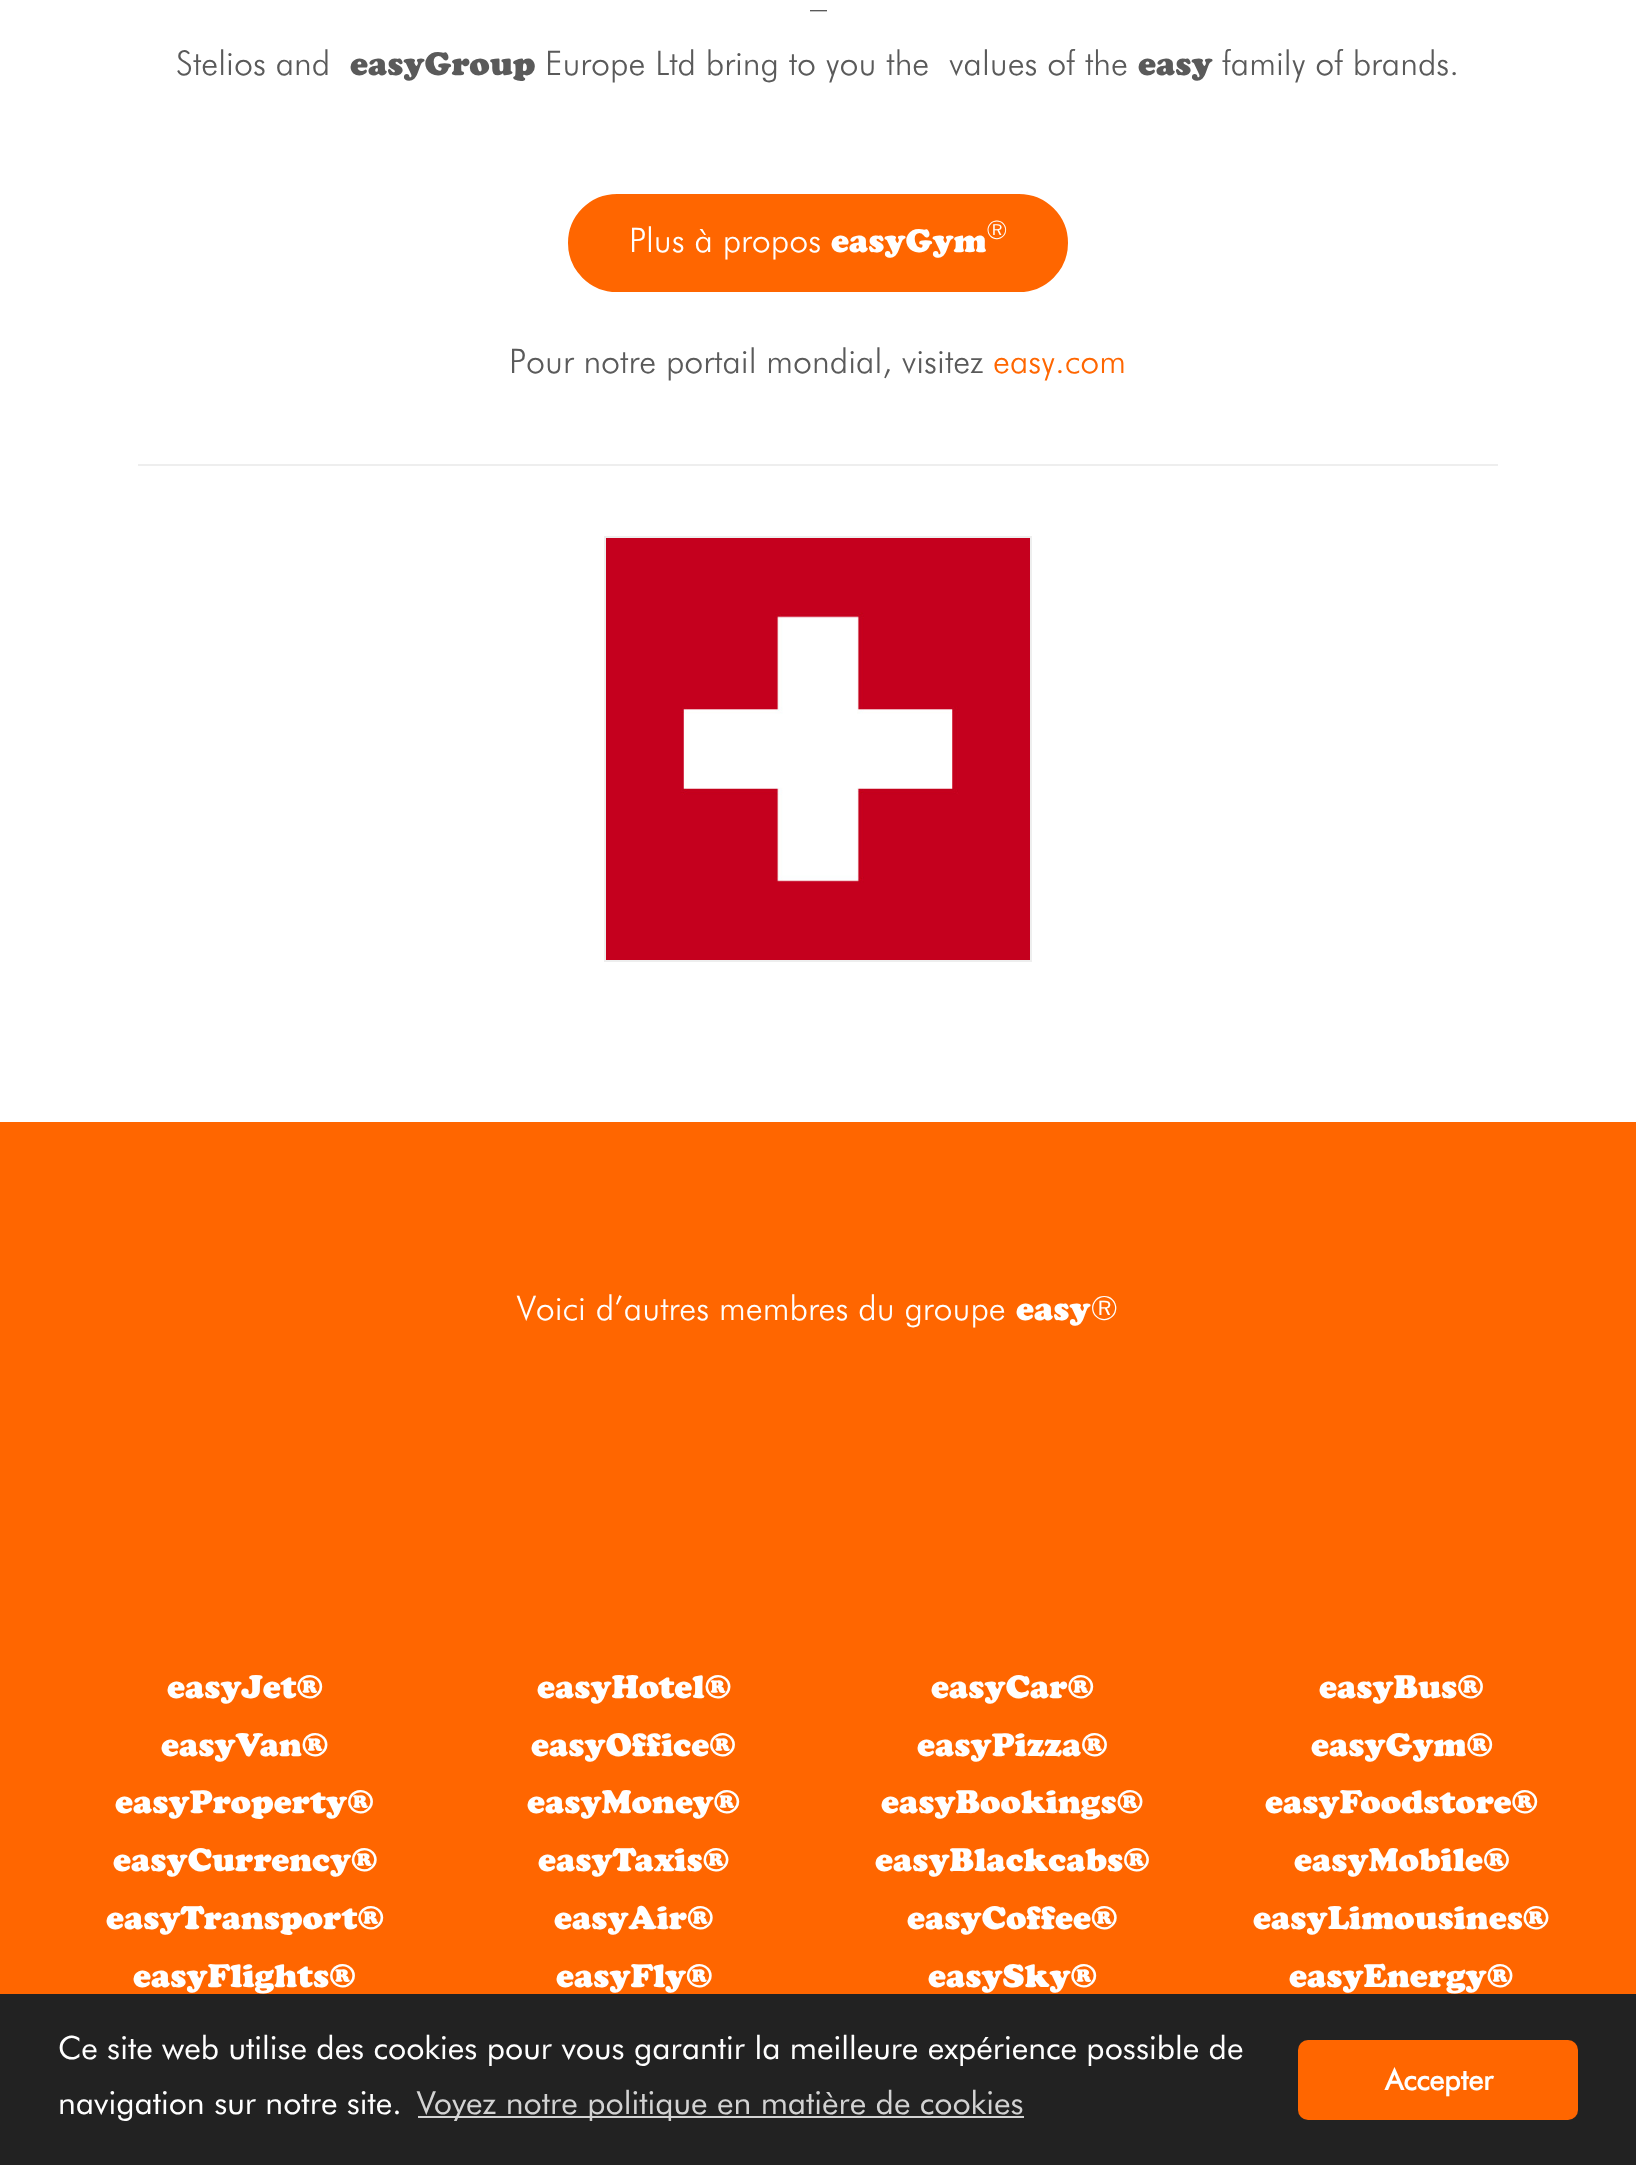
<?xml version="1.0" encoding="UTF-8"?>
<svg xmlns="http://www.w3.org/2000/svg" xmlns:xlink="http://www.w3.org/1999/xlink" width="1636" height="2165">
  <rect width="100%" height="100%" fill="#ffffff" />
  <rect x="566" y="192" width="504" height="102" rx="51" fill="#ff6600" stroke="#ffffff" stroke-width="4" />
  <rect x="138" y="464" width="1360" height="2" fill="#eeeeee" />
  <rect x="605" y="537" width="426" height="424" fill="none" stroke="#eeeeee" stroke-width="2" />
  <image x="606" y="538" width="424" height="422" xlink:href="image1.png" />
  <rect y="1122" width="1636" height="872" fill="#ff6600" />
  <rect y="1994" width="1636" height="171" fill="#222222" />
  <rect x="418" y="2116" width="606" height="2" fill="#d3d3d3" />
  <rect x="1298" y="2040" width="280" height="80" rx="10" fill="#ff6600" />
  <text x="810" y="18" style="font-family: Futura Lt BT; font-size: 34px; font-weight: 300; fill: #5a5a5a">–</text>
  <text x="176" y="75" style="font-family: Futura Lt BT; font-size: 34px; font-weight: 300; fill: #5a5a5a">Stelios and</text>
  <text x="350" y="75" style="font-family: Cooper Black; font-size: 34px; font-weight: 900; fill: #5a5a5a">easyGroup</text>
  <text x="545" y="75" style="font-family: Futura Lt BT; font-size: 34px; font-weight: 300; fill: #5a5a5a">Europe Ltd bring to you the</text>
  <text x="949" y="75" style="font-family: Futura Lt BT; font-size: 34px; font-weight: 300; fill: #5a5a5a">values of the</text>
  <text x="1138" y="75" style="font-family: Cooper Black; font-size: 34px; font-weight: 900; fill: #5a5a5a">easy</text>
  <text x="1222" y="75" style="font-family: Futura Lt BT; font-size: 34px; font-weight: 300; fill: #5a5a5a">family of brands.</text>
  <text x="629" y="252" style="font-family: Futura Lt BT; font-size: 34px; font-weight: 300; fill: #ffffff">Plus à propos</text>
  <text x="831" y="252" style="font-family: Cooper Black; font-size: 34px; font-weight: 900; fill: #ffffff">easyGym</text>
  <text x="986" y="239" style="font-family: Futura Lt BT; font-size: 26px; font-weight: 300; fill: #ffffff">®</text>
  <text x="509" y="373" style="font-family: Futura Lt BT; font-size: 34px; font-weight: 300; fill: #5a5a5a">Pour notre portail mondial, visitez</text>
  <text x="993" y="373" style="font-family: Futura Lt BT; font-size: 34px; font-weight: 300; fill: #ff6600">easy.com</text>
  <text x="517" y="1320" style="font-family: Futura Lt BT; font-size: 34px; font-weight: 300; fill: #ffffff">Voici d’autres membres du groupe</text>
  <text x="1016" y="1320" style="font-family: Cooper Black; font-size: 34px; font-weight: 900; fill: #ffffff">easy</text>
  <text x="1090" y="1320" style="font-family: Futura Lt BT; font-size: 34px; font-weight: 300; fill: #ffffff">®</text>
  <text x="167" y="1698" style="font-family: Cooper Black; font-size: 34px; font-weight: 900; fill: #ffffff">easyJet®</text>
  <text x="161" y="1756" style="font-family: Cooper Black; font-size: 34px; font-weight: 900; fill: #ffffff">easyVan®</text>
  <text x="115" y="1813" style="font-family: Cooper Black; font-size: 34px; font-weight: 900; fill: #ffffff">easyProperty®</text>
  <text x="113" y="1871" style="font-family: Cooper Black; font-size: 34px; font-weight: 900; fill: #ffffff">easyCurrency®</text>
  <text x="106" y="1929" style="font-family: Cooper Black; font-size: 34px; font-weight: 900; fill: #ffffff">easyTransport®</text>
  <text x="133" y="1987" style="font-family: Cooper Black; font-size: 34px; font-weight: 900; fill: #ffffff">easyFlights®</text>
  <text x="537" y="1698" style="font-family: Cooper Black; font-size: 34px; font-weight: 900; fill: #ffffff">easyHotel®</text>
  <text x="531" y="1756" style="font-family: Cooper Black; font-size: 34px; font-weight: 900; fill: #ffffff">easyOffice®</text>
  <text x="527" y="1813" style="font-family: Cooper Black; font-size: 34px; font-weight: 900; fill: #ffffff">easyMoney®</text>
  <text x="538" y="1871" style="font-family: Cooper Black; font-size: 34px; font-weight: 900; fill: #ffffff">easyTaxis®</text>
  <text x="554" y="1929" style="font-family: Cooper Black; font-size: 34px; font-weight: 900; fill: #ffffff">easyAir®</text>
  <text x="556" y="1987" style="font-family: Cooper Black; font-size: 34px; font-weight: 900; fill: #ffffff">easyFly®</text>
  <text x="931" y="1698" style="font-family: Cooper Black; font-size: 34px; font-weight: 900; fill: #ffffff">easyCar®</text>
  <text x="917" y="1756" style="font-family: Cooper Black; font-size: 34px; font-weight: 900; fill: #ffffff">easyPizza®</text>
  <text x="881" y="1813" style="font-family: Cooper Black; font-size: 34px; font-weight: 900; fill: #ffffff">easyBookings®</text>
  <text x="875" y="1871" style="font-family: Cooper Black; font-size: 34px; font-weight: 900; fill: #ffffff">easyBlackcabs®</text>
  <text x="907" y="1929" style="font-family: Cooper Black; font-size: 34px; font-weight: 900; fill: #ffffff">easyCoffee®</text>
  <text x="928" y="1987" style="font-family: Cooper Black; font-size: 34px; font-weight: 900; fill: #ffffff">easySky®</text>
  <text x="1319" y="1698" style="font-family: Cooper Black; font-size: 34px; font-weight: 900; fill: #ffffff">easyBus®</text>
  <text x="1311" y="1756" style="font-family: Cooper Black; font-size: 34px; font-weight: 900; fill: #ffffff">easyGym®</text>
  <text x="1265" y="1813" style="font-family: Cooper Black; font-size: 34px; font-weight: 900; fill: #ffffff">easyFoodstore®</text>
  <text x="1294" y="1871" style="font-family: Cooper Black; font-size: 34px; font-weight: 900; fill: #ffffff">easyMobile®</text>
  <text x="1253" y="1929" style="font-family: Cooper Black; font-size: 34px; font-weight: 900; fill: #ffffff">easyLimousines®</text>
  <text x="1289" y="1987" style="font-family: Cooper Black; font-size: 34px; font-weight: 900; fill: #ffffff">easyEnergy®</text>
  <text x="58" y="2059" style="font-family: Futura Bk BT; font-size: 32px; fill: #ffffff">Ce site web utilise des cookies pour vous garantir la meilleure expérience possible de</text>
  <text x="58" y="2114" style="font-family: Futura Bk BT; font-size: 32px; fill: #ffffff">navigation sur notre site.</text>
  <text x="417" y="2114" style="font-family: Futura Bk BT; font-size: 32px; fill: #d3d3d3">Voyez notre politique en matière de cookies</text>
  <text x="1385" y="2090" style="font-family: Futura Bk BT; font-size: 29px; font-weight: bold; fill: #ffffff">Accepter</text>
</svg>
